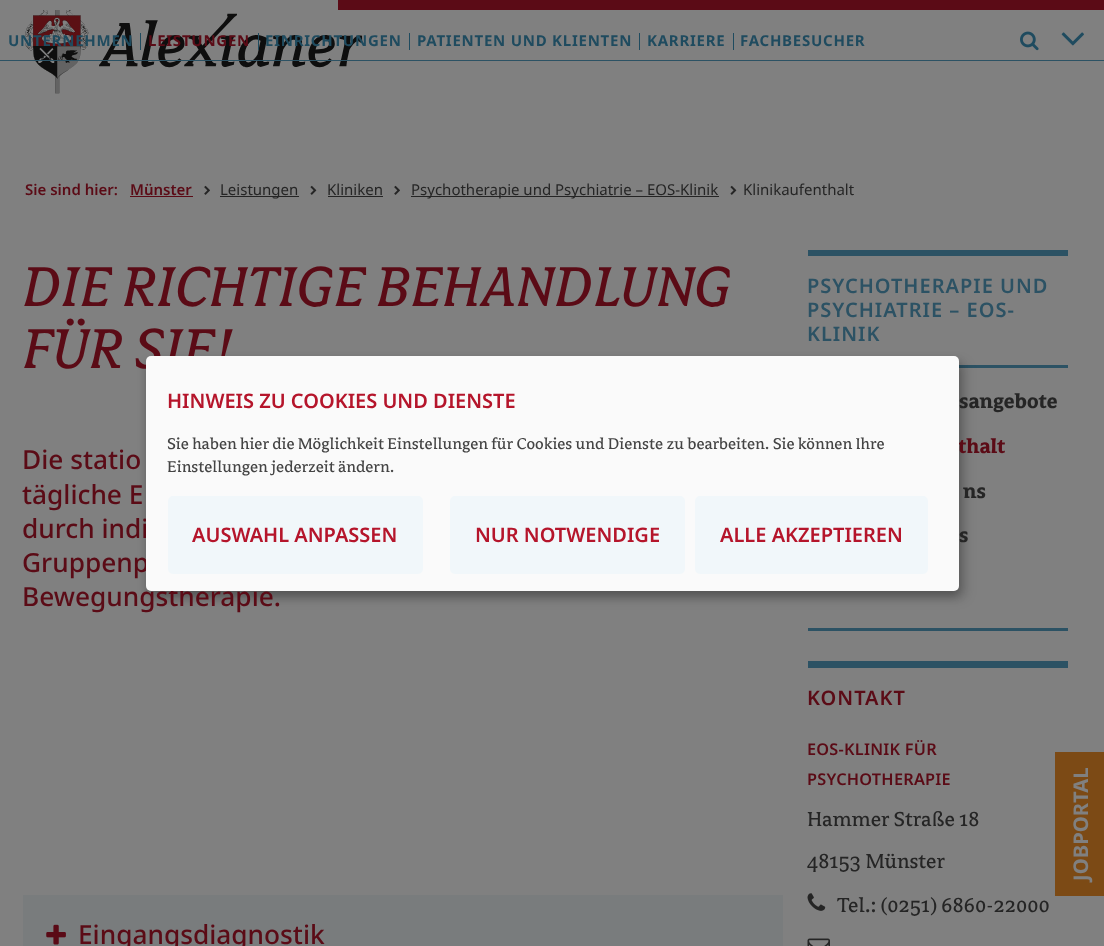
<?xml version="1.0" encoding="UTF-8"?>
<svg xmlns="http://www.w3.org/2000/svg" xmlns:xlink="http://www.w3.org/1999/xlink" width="1104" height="946">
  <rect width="100%" height="100%" fill="#808080" />
  <image x="25" y="10" width="338" height="84" xlink:href="image1.png" />
  <rect x="338" width="766" height="10" fill="#5b0b16" />
  <rect y="60" width="1104" height="1" fill="#2c5264" />
  <rect x="140" y="33" width="1" height="17" fill="#1f4b5f" />
  <rect x="258" y="33" width="1" height="17" fill="#1f4b5f" />
  <rect x="409" y="33" width="1" height="17" fill="#1f4b5f" />
  <rect x="639" y="33" width="1" height="17" fill="#1f4b5f" />
  <rect x="733" y="33" width="1" height="17" fill="#1f4b5f" />
  <image x="1020" y="31" width="19" height="20" xlink:href="image2.png" />
  <image x="1061" y="32" width="23" height="14" xlink:href="image3.png" />
  <rect x="130" y="196" width="63" height="1" fill="#5b0b16" />
  <image x="204" y="185" width="6" height="10" xlink:href="image4.png" />
  <rect x="220" y="196" width="79" height="1" fill="#252525" />
  <image x="310" y="185" width="7" height="10" xlink:href="image5.png" />
  <rect x="328" y="196" width="55" height="1" fill="#252525" />
  <image x="394" y="185" width="6" height="10" xlink:href="image4.png" />
  <rect x="411" y="196" width="308" height="1" fill="#252525" />
  <image x="730" y="185" width="7" height="10" xlink:href="image5.png" />
  <rect x="1055" y="752" width="49" height="144" fill="#7c4a15" />
  <rect x="23" y="895" width="760" height="51" fill="#797c7d" />
  <image x="46" y="924" width="20" height="21" xlink:href="image6.png" />
  <rect x="808" y="250" width="260" height="6" fill="#2c5264" />
  <rect x="959" y="365" width="109" height="3" fill="#2c5264" />
  <rect x="808" y="628" width="260" height="3" fill="#2c5264" />
  <rect x="808" y="661" width="260" height="7" fill="#2c5264" />
  <image x="807" y="893" width="19" height="18" xlink:href="image7.png" />
  <image x="807" y="938" width="23" height="8" xlink:href="image8.png" />
  <rect x="153" y="363" width="812" height="235" rx="5" fill="#000000" fill-opacity="0.19" filter="blur(6px)" />
  <rect x="146" y="361" width="813" height="235" rx="5" fill="#000000" fill-opacity="0.2" filter="blur(4px)" />
  <text x="8" y="46" style="font-family: Noto Sans; font-size: 15px; font-weight: bold; letter-spacing: 0.75px; fill: #1f4b5f">UNTERNEHMEN</text>
  <text x="148" y="46" style="font-family: Noto Sans; font-size: 15px; font-weight: bold; letter-spacing: 0.75px; fill: #5b0b16">LEISTUNGEN</text>
  <text x="265" y="46" style="font-family: Noto Sans; font-size: 15px; font-weight: bold; letter-spacing: 0.75px; fill: #1f4b5f">EINRICHTUNGEN</text>
  <text x="417" y="46" style="font-family: Noto Sans; font-size: 15px; font-weight: bold; letter-spacing: 0.75px; fill: #1f4b5f">PATIENTEN UND KLIENTEN</text>
  <text x="647" y="46" style="font-family: Noto Sans; font-size: 15px; font-weight: bold; letter-spacing: 0.75px; fill: #1f4b5f">KARRIERE</text>
  <text x="740" y="46" style="font-family: Noto Sans; font-size: 15px; font-weight: bold; letter-spacing: 0.75px; fill: #1f4b5f">FACHBESUCHER</text>
  <text x="25" y="195" style="font-family: Noto Sans; font-size: 15px; font-weight: 600; fill: #5b0b16">Sie sind hier:</text>
  <text x="130" y="195" style="font-family: Noto Sans; font-size: 15px; font-weight: 600; fill: #5b0b16">Münster</text>
  <text x="220" y="195" style="font-family: Noto Sans; font-size: 15px; fill: #252525">Leistungen</text>
  <text x="327" y="195" style="font-family: Noto Sans; font-size: 15px; fill: #252525">Kliniken</text>
  <text x="411" y="195" style="font-family: Noto Sans; font-size: 15px; fill: #252525">Psychotherapie und Psychiatrie – EOS-Klinik</text>
  <text x="743" y="195" style="font-family: Noto Sans; font-size: 15px; fill: #252525">Klinikaufenthalt</text>
  <text x="22" y="306" style="font-family: 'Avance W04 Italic'; font-size: 62.5px; letter-spacing: 0.25px; fill: #5b0b16">DIE RICHTIGE BEHANDLUNG</text>
  <text x="22" y="368" style="font-family: 'Avance W04 Italic'; font-size: 62.5px; letter-spacing: 0.25px; fill: #5b0b16">FÜR SIE!</text>
  <text x="22" y="469" style="font-family: Noto Sans; font-size: 26.25px; font-weight: 500; fill: #5b0b16">Die statio</text>
  <text x="22" y="504" style="font-family: Noto Sans; font-size: 26.25px; font-weight: 500; fill: #5b0b16">tägliche E</text>
  <text x="22" y="538" style="font-family: Noto Sans; font-size: 26.25px; font-weight: 500; fill: #5b0b16">durch indi</text>
  <text x="22" y="572" style="font-family: Noto Sans; font-size: 26.25px; font-weight: 500; fill: #5b0b16">Gruppenp</text>
  <text x="22" y="606" style="font-family: Noto Sans; font-size: 26.25px; font-weight: 500; fill: #5b0b16">Bewegungstherapie.</text>
  <text x="1088" y="881" transform="rotate(-90 1088 881)" style="font-family: Noto Sans; font-size: 20.25px; font-weight: bold; fill: #808080">JOBPORTAL</text>
  <text x="78" y="944" style="font-family: Noto Sans; font-size: 26.25px; font-weight: 500; fill: #5b0b16">Eingangsdiagnostik</text>
  <text x="807" y="293" style="font-family: Noto Sans; font-size: 20px; font-weight: 600; letter-spacing: 1px; fill: #2c5264">PSYCHOTHERAPIE UND</text>
  <text x="807" y="317" style="font-family: Noto Sans; font-size: 20px; font-weight: 600; letter-spacing: 1px; fill: #2c5264">PSYCHIATRIE – EOS-</text>
  <text x="807" y="341" style="font-family: Noto Sans; font-size: 20px; font-weight: 600; letter-spacing: 1px; fill: #2c5264">KLINIK</text>
  <text x="959" y="408" style="font-family: 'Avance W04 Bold'; font-size: 22.5px; font-weight: bold; fill: #252525">sangebote</text>
  <text x="958" y="453" style="font-family: 'Avance W04 Bold'; font-size: 22.5px; font-weight: bold; fill: #5b0b16">thalt</text>
  <text x="963" y="498" style="font-family: 'Avance W04 Bold'; font-size: 22.5px; font-weight: bold; fill: #252525">ns</text>
  <text x="959" y="542" style="font-family: 'Avance W04 Bold'; font-size: 22.5px; font-weight: bold; fill: #252525">s</text>
  <text x="807" y="705" style="font-family: Noto Sans; font-size: 20px; font-weight: 600; letter-spacing: 1px; fill: #5b0b16">KONTAKT</text>
  <text x="807" y="755" style="font-family: Noto Sans; font-size: 16.25px; font-weight: 600; letter-spacing: 0.25px; fill: #5b0b16">EOS-KLINIK FÜR</text>
  <text x="807" y="785" style="font-family: Noto Sans; font-size: 16.25px; font-weight: 600; letter-spacing: 0.25px; fill: #5b0b16">PSYCHOTHERAPIE</text>
  <text x="807" y="826" style="font-family: 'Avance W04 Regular'; font-size: 22.5px; fill: #252525">Hammer Straße 18</text>
  <text x="807" y="868" style="font-family: 'Avance W04 Regular'; font-size: 22.5px; fill: #252525">48153 Münster</text>
  <text x="837" y="912" style="font-family: 'Avance W04 Regular'; font-size: 22.5px; fill: #252525">Tel.: (0251) 6860-22000</text>
  <rect x="146" y="356" width="813" height="235" rx="5" fill="#fafafa" />
  <text x="167" y="408" style="font-family: Noto Sans; font-size: 20px; font-weight: 600; fill: #b5152b">HINWEIS ZU COOKIES UND DIENSTE</text>
  <text x="167" y="449" style="font-family: 'Avance W04 Regular'; font-size: 17.5px; fill: #444444">Sie haben hier die Möglichkeit Einstellungen für Cookies und Dienste zu bearbeiten. Sie können Ihre</text>
  <text x="167" y="472" style="font-family: 'Avance W04 Regular'; font-size: 17.5px; fill: #444444">Einstellungen jederzeit ändern.</text>
  <rect x="168" y="496" width="255" height="78" rx="5" fill="#f1f7fa" />
  <text x="192" y="542" style="font-family: Noto Sans; font-size: 20px; font-weight: 600; fill: #b5152b">AUSWAHL ANPASSEN</text>
  <rect x="450" y="496" width="235" height="78" rx="5" fill="#f1f7fa" />
  <text x="475" y="542" style="font-family: Noto Sans; font-size: 20px; font-weight: 600; fill: #b5152b">NUR NOTWENDIGE</text>
  <rect x="695" y="496" width="233" height="78" rx="5" fill="#f1f7fa" />
  <text x="720" y="542" style="font-family: Noto Sans; font-size: 20px; font-weight: 600; fill: #b5152b">ALLE AKZEPTIEREN</text>
</svg>
